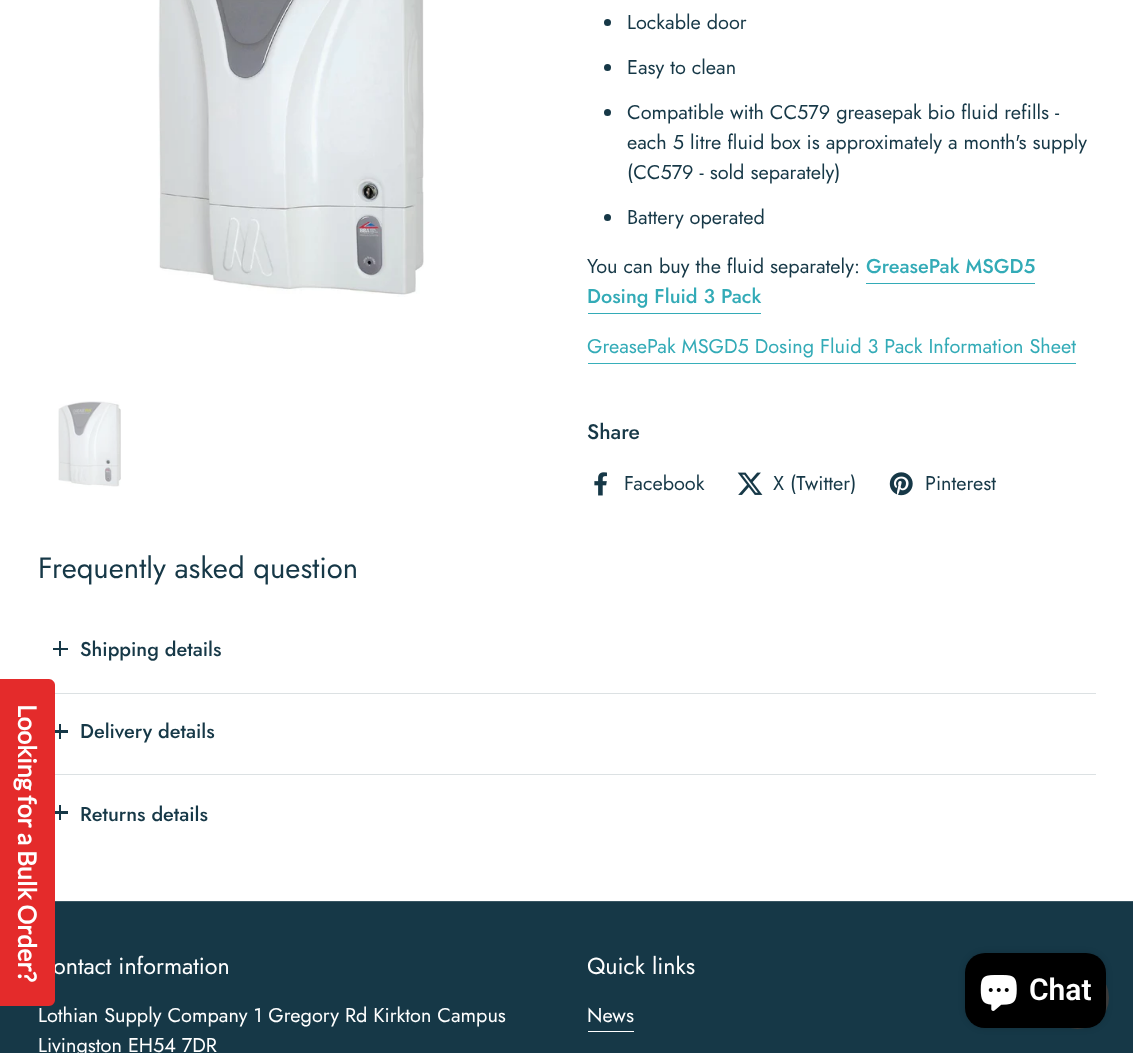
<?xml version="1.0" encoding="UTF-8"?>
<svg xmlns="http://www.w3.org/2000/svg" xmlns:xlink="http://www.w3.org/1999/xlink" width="1133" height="1053">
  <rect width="100%" height="100%" fill="#ffffff" />
  <rect y="902" width="1133" height="151" fill="#163847" />
  <circle cx="1077.5" cy="997.5" r="31.5" fill="#3e3e3e" />
  <image x="158" y="0" width="266" height="297" xlink:href="image1.png" />
  <image x="58" y="401" width="63" height="86" xlink:href="image2.png" />
  <circle cx="607.5" cy="22.5" r="3.5" fill="#163847" />
  <circle cx="607.5" cy="67.5" r="3.5" fill="#163847" />
  <circle cx="607.5" cy="112.5" r="3.5" fill="#163847" />
  <circle cx="607.5" cy="217.5" r="3.5" fill="#163847" />
  <rect x="866" y="283" width="169" height="1" fill="#33abb7" />
  <rect x="588" y="313" width="173" height="1" fill="#33abb7" />
  <rect x="588" y="363" width="488" height="1" fill="#37afba" />
  <image x="594" y="472" width="13" height="24" xlink:href="image3.png" />
  <image x="737" y="472" width="26" height="23" xlink:href="image4.png" />
  <image x="889" y="472" width="24" height="24" xlink:href="image5.png" />
  <rect x="59" y="641" width="2" height="15" fill="#163847" />
  <rect x="53" y="648" width="15" height="2" fill="#163847" />
  <rect x="55" y="693" width="1041" height="1" fill="#dce1e3" />
  <rect x="59" y="724" width="2" height="15" fill="#163847" />
  <rect x="53" y="730" width="15" height="3" fill="#163847" />
  <rect x="55" y="774" width="1041" height="1" fill="#dce1e3" />
  <rect x="59" y="805" width="2" height="15" fill="#163847" />
  <rect x="53" y="811" width="15" height="3" fill="#163847" />
  <rect x="55" y="901" width="1078" height="1" fill="#395663" />
  <rect x="588" y="1031" width="46" height="1" fill="#ffffff" />
  <rect x="965" y="953" width="141" height="75" rx="20" fill="#000000" fill-opacity="0.15" filter="blur(3px)" />
  <rect x="965" y="953" width="141" height="75" rx="20" fill="#000000" />
  <image x="980" y="975" width="37" height="36" xlink:href="image6.png" />
  <text x="627" y="29" style="font-family: Jost; font-size: 19.9px; fill: #163847">Lockable door</text>
  <text x="627" y="74" style="font-family: Jost; font-size: 19.9px; fill: #163847">Easy to clean</text>
  <text x="627" y="119" style="font-family: Jost; font-size: 19.9px; fill: #163847">Compatible with CC579 greasepak bio fluid refills -</text>
  <text x="627" y="149" style="font-family: Jost; font-size: 19.9px; fill: #163847">each 5 litre fluid box is approximately a month's supply</text>
  <text x="627" y="179" style="font-family: Jost; font-size: 19.9px; fill: #163847">(CC579 - sold separately)</text>
  <text x="627" y="224" style="font-family: Jost; font-size: 19.9px; fill: #163847">Battery operated</text>
  <text x="587" y="273" style="font-family: Jost; font-size: 19.9px; fill: #163847">You can buy the fluid separately:</text>
  <text x="866" y="273" style="font-family: Jost; font-size: 19.9px; font-weight: 500; fill: #33abb7">GreasePak MSGD5</text>
  <text x="587" y="303" style="font-family: Jost; font-size: 19.9px; font-weight: 500; fill: #33abb7">Dosing Fluid 3 Pack</text>
  <text x="587" y="353" style="font-family: Jost; font-size: 19.9px; fill: #33abb7">GreasePak MSGD5 Dosing Fluid 3 Pack Information Sheet</text>
  <text x="587" y="439" style="font-family: Jost; font-size: 21px; font-weight: 500; fill: #163847">Share</text>
  <text x="624" y="490" style="font-family: Jost; font-size: 19.9px; fill: #163847">Facebook</text>
  <text x="773" y="490" style="font-family: Jost; font-size: 19.9px; fill: #163847">X (Twitter)</text>
  <text x="925" y="490" style="font-family: Jost; font-size: 19.9px; fill: #163847">Pinterest</text>
  <text x="38" y="578" style="font-family: Jost; font-size: 29.25px; fill: #163847">Frequently asked question</text>
  <text x="80" y="656" style="font-family: Jost; font-size: 19.9px; font-weight: 500; fill: #163847">Shipping details</text>
  <text x="80" y="738" style="font-family: Jost; font-size: 19.9px; font-weight: 500; fill: #163847">Delivery details</text>
  <text x="80" y="821" style="font-family: Jost; font-size: 19.9px; font-weight: 500; fill: #163847">Returns details</text>
  <text x="53" y="974" style="font-family: Jost; font-size: 23.25px; fill: #ffffff">ontact information</text>
  <path d="M 55 685 v 315 c 0 3 -3 6 -6 6 h -49 v -327 h 49 c 3 0 6 3 6 6 z" fill="#e42b2b" />
  <text x="18" y="704" transform="rotate(90 18 704)" style="font-family: Lato; font-size: 25px; font-weight: bold; fill: #ffffff">Looking for a Bulk Order?</text>
  <text x="38" y="1022" style="font-family: Jost; font-size: 19.9px; fill: #ffffff">Lothian Supply Company 1 Gregory Rd Kirkton Campus</text>
  <text x="38" y="1052" style="font-family: Jost; font-size: 19.9px; fill: #ffffff">Livingston EH54 7DR</text>
  <text x="587" y="974" style="font-family: Jost; font-size: 23.25px; fill: #ffffff">Quick links</text>
  <text x="587" y="1022" style="font-family: Jost; font-size: 19.9px; fill: #ffffff">News</text>
  <text x="1029" y="1000" style="font-family: Roboto; font-size: 30px; font-weight: 600; fill: #ffffff">Chat</text>
</svg>
